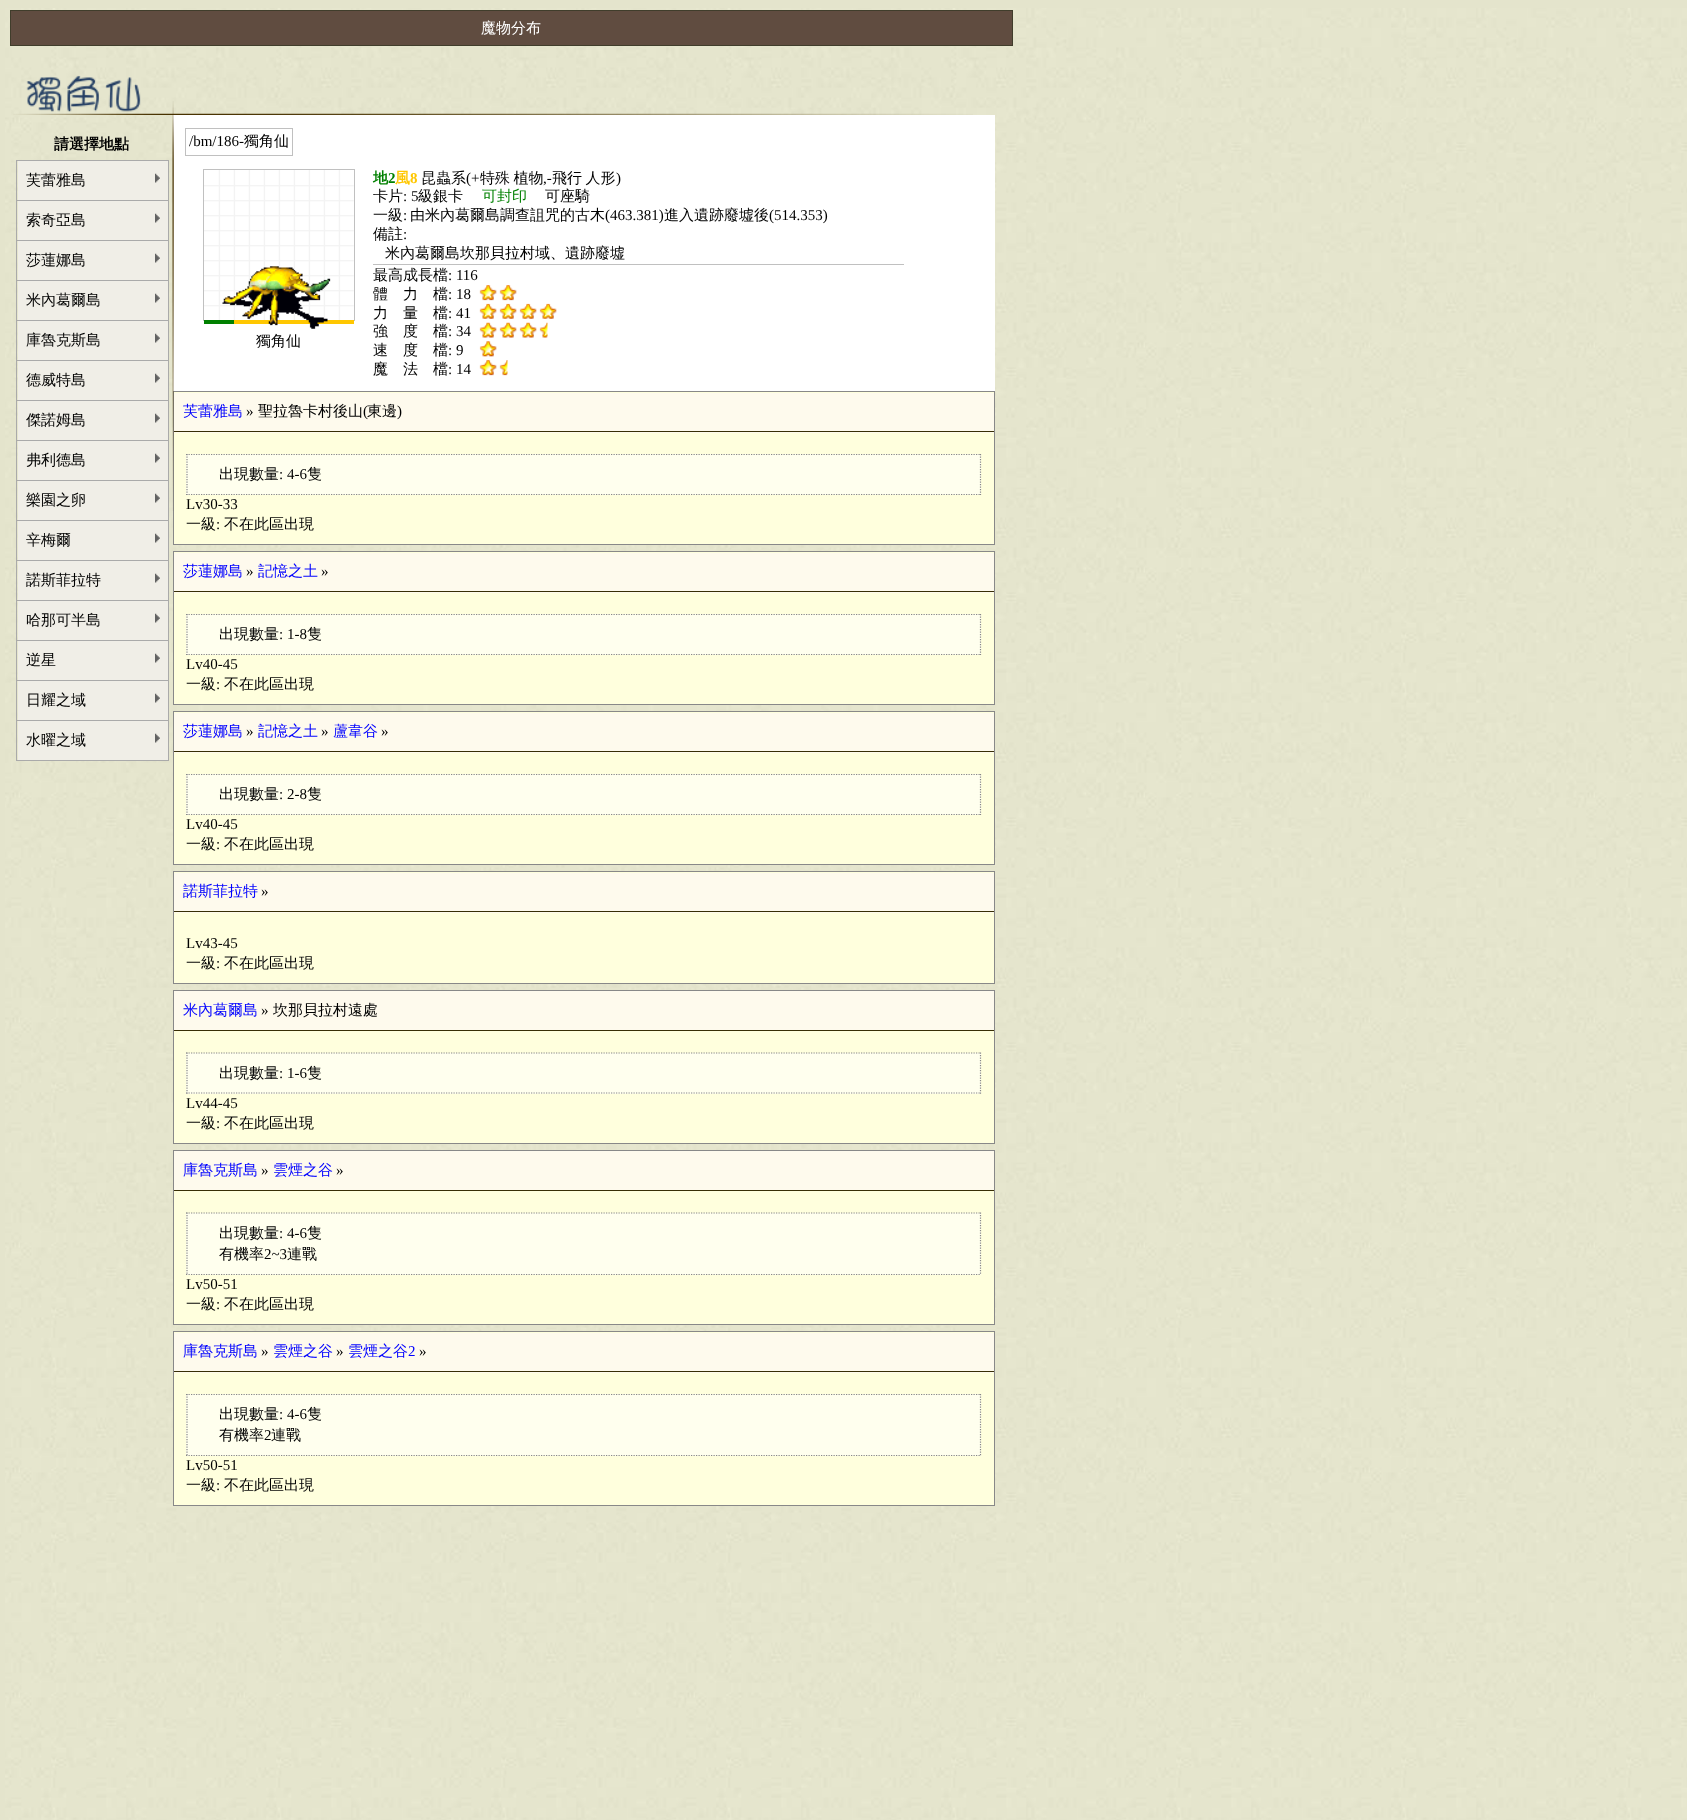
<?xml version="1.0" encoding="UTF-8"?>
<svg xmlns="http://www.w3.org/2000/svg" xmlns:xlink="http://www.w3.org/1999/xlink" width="1687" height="1820">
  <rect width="100%" height="100%" fill="#e4e4cc" />
  <image x="5" y="8" width="1682" height="1812" xlink:href="image1.png" />
  <rect x="10.5" y="10.5" width="1002" height="35" fill="#604c40" stroke="#403d2b" />
  <rect x="16.5" y="160.5" width="152" height="40" fill="none" stroke="#aaaaaa" />
  <rect x="18" y="161" width="150" height="39" fill="#f0eee7" />
  <image x="155" y="173" width="5" height="10" xlink:href="image2.png" />
  <rect x="16.5" y="200.5" width="152" height="40" fill="none" stroke="#aaaaaa" />
  <rect x="18" y="201" width="150" height="39" fill="#f0eee7" />
  <image x="155" y="213" width="5" height="10" xlink:href="image2.png" />
  <rect x="16.5" y="240.5" width="152" height="40" fill="none" stroke="#aaaaaa" />
  <rect x="18" y="241" width="150" height="39" fill="#f0eee7" />
  <image x="155" y="253" width="5" height="10" xlink:href="image2.png" />
  <rect x="16.5" y="280.5" width="152" height="40" fill="none" stroke="#aaaaaa" />
  <rect x="18" y="281" width="150" height="39" fill="#f0eee7" />
  <image x="155" y="293" width="5" height="10" xlink:href="image3.png" />
  <rect x="16.5" y="320.5" width="152" height="40" fill="none" stroke="#aaaaaa" />
  <rect x="18" y="321" width="150" height="39" fill="#f0eee7" />
  <image x="155" y="333" width="5" height="10" xlink:href="image2.png" />
  <rect x="16.5" y="360.5" width="152" height="40" fill="none" stroke="#aaaaaa" />
  <rect x="18" y="361" width="150" height="39" fill="#f0eee7" />
  <image x="155" y="373" width="5" height="10" xlink:href="image2.png" />
  <rect x="16.5" y="400.5" width="152" height="40" fill="none" stroke="#aaaaaa" />
  <rect x="18" y="401" width="150" height="39" fill="#f0eee7" />
  <image x="155" y="413" width="5" height="10" xlink:href="image2.png" />
  <rect x="16.5" y="440.5" width="152" height="40" fill="none" stroke="#aaaaaa" />
  <rect x="18" y="441" width="150" height="39" fill="#f0eee7" />
  <image x="155" y="453" width="5" height="10" xlink:href="image2.png" />
  <rect x="16.5" y="480.5" width="152" height="40" fill="none" stroke="#aaaaaa" />
  <rect x="18" y="481" width="150" height="39" fill="#f0eee7" />
  <image x="155" y="493" width="5" height="10" xlink:href="image2.png" />
  <rect x="16.5" y="520.5" width="152" height="40" fill="none" stroke="#aaaaaa" />
  <rect x="18" y="521" width="150" height="39" fill="#f0eee7" />
  <image x="155" y="533" width="5" height="10" xlink:href="image2.png" />
  <rect x="16.5" y="560.5" width="152" height="40" fill="none" stroke="#aaaaaa" />
  <rect x="18" y="561" width="150" height="39" fill="#f0eee7" />
  <image x="155" y="573" width="5" height="10" xlink:href="image2.png" />
  <rect x="16.5" y="600.5" width="152" height="40" fill="none" stroke="#aaaaaa" />
  <rect x="18" y="601" width="150" height="39" fill="#f0eee7" />
  <image x="155" y="613" width="5" height="10" xlink:href="image2.png" />
  <rect x="16.5" y="640.5" width="152" height="40" fill="none" stroke="#aaaaaa" />
  <rect x="18" y="641" width="150" height="39" fill="#f0eee7" />
  <image x="155" y="653" width="5" height="10" xlink:href="image2.png" />
  <rect x="16.5" y="680.5" width="152" height="40" fill="none" stroke="#aaaaaa" />
  <rect x="18" y="681" width="150" height="39" fill="#f0eee7" />
  <image x="155" y="693" width="5" height="10" xlink:href="image2.png" />
  <rect x="16.5" y="720.5" width="152" height="40" fill="none" stroke="#aaaaaa" />
  <rect x="18" y="721" width="150" height="39" fill="#f0eee7" />
  <image x="155" y="733" width="5" height="10" xlink:href="image2.png" />
  <image x="26" y="75" width="115" height="37" xlink:href="image4.png" />
  <image x="13" y="113" width="960" height="2" xlink:href="image6.png" />
  <rect x="173" y="115" width="822" height="276" fill="#ffffff" />
  <rect x="173.5" y="391.5" width="821" height="153" fill="#ffffdd" stroke="#888888" />
  <image x="172" y="101" width="2" height="410" xlink:href="image5.png" />
  <rect x="185.5" y="128.5" width="107" height="27" fill="none" stroke="#c0c0c0" />
  <image x="204" y="170" width="150" height="150" xlink:href="image7.png" />
  <rect x="203.5" y="169.5" width="151" height="151" fill="none" stroke="#c0c0c0" />
  <rect x="204" y="320" width="30" height="4" fill="#008000" />
  <rect x="234" y="320" width="120" height="4" fill="#ffc700" />
  <image x="222" y="266" width="109" height="63" xlink:href="image8.png" />
  <rect x="373" y="264" width="531" height="1" fill="#c0c0c0" />
  <image x="479" y="285" width="38" height="16" xlink:href="image9.png" />
  <image x="479" y="303" width="78" height="16" xlink:href="image10.png" />
  <image x="479" y="322" width="69" height="16" xlink:href="image11.png" />
  <image x="479" y="341" width="18" height="16" xlink:href="image12.png" />
  <image x="479" y="360" width="29" height="16" xlink:href="image13.png" />
  <rect x="174" y="393" width="820" height="40" fill="#fefaed" />
  <rect x="174" y="431" width="820" height="1" fill="#382e05" />
  <rect x="186" y="454" width="795" height="41" fill="#ffffee" />
  <path d="M 186 454.5 h 795" fill="none" stroke="#888888" stroke-width="1.2" stroke-dasharray="1.25 1.25" />
  <path d="M 980.5 454 v 41" fill="none" stroke="#888888" stroke-width="1.2" stroke-dasharray="1.25 1.25" />
  <path d="M 186 494.5 h 795" fill="none" stroke="#888888" stroke-width="1.2" stroke-dasharray="1.25 1.25" />
  <path d="M 187 454 v 41" fill="none" stroke="#888888" stroke-width="1.2" stroke-dasharray="1.25 1.25" />
  <rect x="173.5" y="551.5" width="821" height="153" fill="#ffffdd" stroke="#888888" />
  <rect x="174" y="553" width="820" height="40" fill="#fefaed" />
  <rect x="174" y="591" width="820" height="1" fill="#382e05" />
  <rect x="186" y="614" width="795" height="41" fill="#ffffee" />
  <path d="M 186 614.5 h 795" fill="none" stroke="#888888" stroke-width="1.2" stroke-dasharray="1.25 1.25" />
  <path d="M 980.5 614 v 41" fill="none" stroke="#888888" stroke-width="1.2" stroke-dasharray="1.25 1.25" />
  <path d="M 186 654.5 h 795" fill="none" stroke="#888888" stroke-width="1.2" stroke-dasharray="1.25 1.25" />
  <path d="M 187 614 v 41" fill="none" stroke="#888888" stroke-width="1.2" stroke-dasharray="1.25 1.25" />
  <rect x="173.5" y="711.5" width="821" height="153" fill="#ffffdd" stroke="#888888" />
  <rect x="174" y="713" width="820" height="40" fill="#fefaed" />
  <rect x="174" y="751" width="820" height="1" fill="#382e05" />
  <rect x="186" y="774" width="795" height="41" fill="#ffffee" />
  <path d="M 186 774.5 h 795" fill="none" stroke="#888888" stroke-width="1.2" stroke-dasharray="1.25 1.25" />
  <path d="M 980.5 774 v 41" fill="none" stroke="#888888" stroke-width="1.2" stroke-dasharray="1.25 1.25" />
  <path d="M 186 814.5 h 795" fill="none" stroke="#888888" stroke-width="1.2" stroke-dasharray="1.25 1.25" />
  <path d="M 187 774 v 41" fill="none" stroke="#888888" stroke-width="1.2" stroke-dasharray="1.25 1.25" />
  <rect x="173.5" y="871.5" width="821" height="112" fill="#ffffdd" stroke="#888888" />
  <rect x="174" y="873" width="820" height="40" fill="#fefaed" />
  <rect x="174" y="911" width="820" height="1" fill="#382e05" />
  <rect x="174" y="1031" width="820" height="112" fill="#ffffdd" />
  <rect x="173.5" y="990.5" width="821" height="153" fill="none" stroke="#888888" />
  <rect x="174" y="991" width="820" height="39" fill="#fefaed" />
  <rect x="174" y="1030" width="820" height="1" fill="#382e05" />
  <rect x="186" y="1053" width="795" height="41" fill="#ffffee" />
  <path d="M 186 1053 h 795" fill="none" stroke="#888888" stroke-width="1.2" stroke-dasharray="1.25 1.25" />
  <path d="M 980.5 1052.5 v 41.5" fill="none" stroke="#888888" stroke-width="1.2" stroke-dasharray="1.25 1.25" />
  <path d="M 186 1093 h 795" fill="none" stroke="#888888" stroke-width="1.2" stroke-dasharray="1.25 1.25" />
  <path d="M 187 1052.5 v 41.5" fill="none" stroke="#888888" stroke-width="1.2" stroke-dasharray="1.25 1.25" />
  <rect x="174" y="1191" width="820" height="133" fill="#ffffdd" />
  <rect x="173.5" y="1150.5" width="821" height="174" fill="none" stroke="#888888" />
  <rect x="174" y="1151" width="820" height="39" fill="#fefaed" />
  <rect x="174" y="1190" width="820" height="1" fill="#382e05" />
  <rect x="186" y="1213" width="795" height="62" fill="#ffffee" />
  <path d="M 186 1213 h 795" fill="none" stroke="#888888" stroke-width="1.2" stroke-dasharray="1.25 1.25" />
  <path d="M 980.5 1212.5 v 62.5" fill="none" stroke="#888888" stroke-width="1.2" stroke-dasharray="1.25 1.25" />
  <path d="M 186 1274.5 h 795" fill="none" stroke="#888888" stroke-width="1.2" stroke-dasharray="1.25 1.25" />
  <path d="M 187 1212.5 v 62.5" fill="none" stroke="#888888" stroke-width="1.2" stroke-dasharray="1.25 1.25" />
  <rect x="173.5" y="1331.5" width="821" height="174" fill="#ffffdd" stroke="#888888" />
  <rect x="174" y="1333" width="820" height="40" fill="#fefaed" />
  <rect x="174" y="1371" width="820" height="1" fill="#382e05" />
  <rect x="186" y="1394" width="795" height="62" fill="#ffffee" />
  <path d="M 186 1394.5 h 795" fill="none" stroke="#888888" stroke-width="1.2" stroke-dasharray="1.25 1.25" />
  <path d="M 980.5 1394 v 62" fill="none" stroke="#888888" stroke-width="1.2" stroke-dasharray="1.25 1.25" />
  <path d="M 186 1455.5 h 795" fill="none" stroke="#888888" stroke-width="1.2" stroke-dasharray="1.25 1.25" />
  <path d="M 187 1394 v 62" fill="none" stroke="#888888" stroke-width="1.2" stroke-dasharray="1.25 1.25" />
  <text x="481" y="33" style="font-family: WenQuanYi Zen Hei; font-size: 15px; font-weight: 500; fill: #ffffff">魔物分布</text>
  <text x="54" y="149" style="font-family: WenQuanYi Zen Hei; font-size: 15px; font-weight: bold; fill: #000000">請選擇地點</text>
  <text x="26" y="185" style="font-family: WenQuanYi Zen Hei; font-size: 15px; font-weight: 500; fill: #000000">芙蕾雅島</text>
  <text x="26" y="225" style="font-family: WenQuanYi Zen Hei; font-size: 15px; font-weight: 500; fill: #000000">索奇亞島</text>
  <text x="26" y="265" style="font-family: WenQuanYi Zen Hei; font-size: 15px; font-weight: 500; fill: #000000">莎蓮娜島</text>
  <text x="26" y="305" style="font-family: WenQuanYi Zen Hei; font-size: 15px; font-weight: 500; fill: #000000">米內葛爾島</text>
  <text x="26" y="345" style="font-family: WenQuanYi Zen Hei; font-size: 15px; font-weight: 500; fill: #000000">庫魯克斯島</text>
  <text x="26" y="385" style="font-family: WenQuanYi Zen Hei; font-size: 15px; font-weight: 500; fill: #000000">德威特島</text>
  <text x="26" y="425" style="font-family: WenQuanYi Zen Hei; font-size: 15px; font-weight: 500; fill: #000000">傑諾姆島</text>
  <text x="26" y="465" style="font-family: WenQuanYi Zen Hei; font-size: 15px; font-weight: 500; fill: #000000">弗利德島</text>
  <text x="26" y="505" style="font-family: WenQuanYi Zen Hei; font-size: 15px; font-weight: 500; fill: #000000">樂園之卵</text>
  <text x="26" y="545" style="font-family: WenQuanYi Zen Hei; font-size: 15px; font-weight: 500; fill: #000000">辛梅爾</text>
  <text x="26" y="585" style="font-family: WenQuanYi Zen Hei; font-size: 15px; font-weight: 500; fill: #000000">諾斯菲拉特</text>
  <text x="26" y="625" style="font-family: WenQuanYi Zen Hei; font-size: 15px; font-weight: 500; fill: #000000">哈那可半島</text>
  <text x="26" y="665" style="font-family: WenQuanYi Zen Hei; font-size: 15px; font-weight: 500; fill: #000000">逆星</text>
  <text x="26" y="705" style="font-family: WenQuanYi Zen Hei; font-size: 15px; font-weight: 500; fill: #000000">日耀之域</text>
  <text x="26" y="745" style="font-family: WenQuanYi Zen Hei; font-size: 15px; font-weight: 500; fill: #000000">水曜之域</text>
  <text x="189" y="146" style="font-family: Liberation Serif; font-size: 15px; fill: #000000">/bm/186-</text>
  <text x="244" y="146" style="font-family: WenQuanYi Zen Hei; font-size: 15px; font-weight: 500; fill: #000000">獨角仙</text>
  <text x="256" y="346" style="font-family: WenQuanYi Zen Hei; font-size: 15px; font-weight: 500; fill: #000000">獨角仙</text>
  <text x="373" y="183" style="font-family: WenQuanYi Zen Hei; font-size: 15px; font-weight: bold; fill: #008000">地</text>
  <text x="388" y="183" style="font-family: Liberation Serif; font-size: 15px; font-weight: bold; fill: #008000">2</text>
  <text x="395" y="183" style="font-family: WenQuanYi Zen Hei; font-size: 15px; font-weight: bold; fill: #ffc700">風</text>
  <text x="410" y="183" style="font-family: Liberation Serif; font-size: 15px; font-weight: bold; fill: #ffc700">8</text>
  <text x="421" y="183" style="font-family: WenQuanYi Zen Hei; font-size: 15px; font-weight: 500; fill: #000000">昆蟲系</text>
  <text x="466" y="183" style="font-family: Liberation Serif; font-size: 15px; fill: #000000">(+</text>
  <text x="480" y="183" word-spacing="-1" style="font-family: WenQuanYi Zen Hei; font-size: 15px; font-weight: 500; fill: #000000">特殊 植物</text>
  <text x="543" y="183" style="font-family: Liberation Serif; font-size: 15px; fill: #000000">,-</text>
  <text x="552" y="183" word-spacing="-1" style="font-family: WenQuanYi Zen Hei; font-size: 15px; font-weight: 500; fill: #000000">飛行 人形</text>
  <text x="616" y="183" style="font-family: Liberation Serif; font-size: 15px; fill: #000000">)</text>
  <text x="373" y="201" style="font-family: WenQuanYi Zen Hei; font-size: 15px; font-weight: 500; fill: #000000">卡片</text>
  <text x="403" y="201" style="font-family: Liberation Serif; font-size: 15px; fill: #000000">: 5</text>
  <text x="418" y="201" style="font-family: WenQuanYi Zen Hei; font-size: 15px; font-weight: 500; fill: #000000">級銀卡</text>
  <text x="482" y="201" style="font-family: WenQuanYi Zen Hei; font-size: 15px; font-weight: 500; fill: #008000">可封印</text>
  <text x="545" y="201" style="font-family: WenQuanYi Zen Hei; font-size: 15px; font-weight: 500; fill: #000000">可座騎</text>
  <text x="373" y="220" style="font-family: WenQuanYi Zen Hei; font-size: 15px; font-weight: 500; fill: #000000">一級</text>
  <text x="403" y="220" style="font-family: Liberation Serif; font-size: 15px; fill: #000000">:</text>
  <text x="410" y="220" style="font-family: WenQuanYi Zen Hei; font-size: 15px; font-weight: 500; fill: #000000">由米內葛爾島調查詛咒的古木</text>
  <text x="605" y="220" style="font-family: Liberation Serif; font-size: 15px; fill: #000000">(463.381)</text>
  <text x="664" y="220" style="font-family: WenQuanYi Zen Hei; font-size: 15px; font-weight: 500; fill: #000000">進入遺跡廢墟後</text>
  <text x="769" y="220" style="font-family: Liberation Serif; font-size: 15px; fill: #000000">(514.353)</text>
  <text x="373" y="239" style="font-family: WenQuanYi Zen Hei; font-size: 15px; font-weight: 500; fill: #000000">備註</text>
  <text x="403" y="239" style="font-family: Liberation Serif; font-size: 15px; fill: #000000">:</text>
  <text x="385" y="258" style="font-family: WenQuanYi Zen Hei; font-size: 15px; font-weight: 500; fill: #000000">米內葛爾島坎那貝拉村域、遺跡廢墟</text>
  <text x="373" y="280" style="font-family: WenQuanYi Zen Hei; font-size: 15px; font-weight: 500; fill: #000000">最高成長檔</text>
  <text x="448" y="280" style="font-family: Liberation Serif; font-size: 15px; fill: #000000">: 116</text>
  <text x="373" y="299" style="font-family: WenQuanYi Zen Hei; font-size: 15px; font-weight: 500; fill: #000000">體　力　檔</text>
  <text x="448" y="299" style="font-family: Liberation Serif; font-size: 15px; fill: #000000">: 18</text>
  <text x="373" y="318" style="font-family: WenQuanYi Zen Hei; font-size: 15px; font-weight: 500; fill: #000000">力　量　檔</text>
  <text x="448" y="318" style="font-family: Liberation Serif; font-size: 15px; fill: #000000">: 41</text>
  <text x="373" y="336" style="font-family: WenQuanYi Zen Hei; font-size: 15px; font-weight: 500; fill: #000000">強　度　檔</text>
  <text x="448" y="336" style="font-family: Liberation Serif; font-size: 15px; fill: #000000">: 34</text>
  <text x="373" y="355" style="font-family: WenQuanYi Zen Hei; font-size: 15px; font-weight: 500; fill: #000000">速　度　檔</text>
  <text x="448" y="355" style="font-family: Liberation Serif; font-size: 15px; fill: #000000">: 9</text>
  <text x="373" y="374" style="font-family: WenQuanYi Zen Hei; font-size: 15px; font-weight: 500; fill: #000000">魔　法　檔</text>
  <text x="448" y="374" style="font-family: Liberation Serif; font-size: 15px; fill: #000000">: 14</text>
  <text x="183" y="416" style="font-family: WenQuanYi Zen Hei; font-size: 15px; font-weight: 500; fill: #0000ff">芙蕾雅島</text>
  <text x="246" y="416" style="font-family: Liberation Serif; font-size: 15px; fill: #000000">»</text>
  <text x="258" y="416" style="font-family: WenQuanYi Zen Hei; font-size: 15px; font-weight: 500; fill: #000000">聖拉魯卡村後山</text>
  <text x="363" y="416" style="font-family: Liberation Serif; font-size: 15px; fill: #000000">(</text>
  <text x="367" y="416" style="font-family: WenQuanYi Zen Hei; font-size: 15px; font-weight: 500; fill: #000000">東邊</text>
  <text x="397" y="416" style="font-family: Liberation Serif; font-size: 15px; fill: #000000">)</text>
  <text x="219" y="479" style="font-family: WenQuanYi Zen Hei; font-size: 15px; font-weight: 500; fill: #000000">出現數量</text>
  <text x="279" y="479" style="font-family: Liberation Serif; font-size: 15px; fill: #000000">: 4-6</text>
  <text x="307" y="479" style="font-family: WenQuanYi Zen Hei; font-size: 15px; font-weight: 500; fill: #000000">隻</text>
  <text x="186" y="509" style="font-family: Liberation Serif; font-size: 15px; fill: #000000">Lv30-33</text>
  <text x="186" y="529" style="font-family: WenQuanYi Zen Hei; font-size: 15px; font-weight: 500; fill: #000000">一級</text>
  <text x="216" y="529" style="font-family: Liberation Serif; font-size: 15px; fill: #000000">:</text>
  <text x="224" y="529" style="font-family: WenQuanYi Zen Hei; font-size: 15px; font-weight: 500; fill: #000000">不在此區出現</text>
  <text x="183" y="576" style="font-family: WenQuanYi Zen Hei; font-size: 15px; font-weight: 500; fill: #0000ff">莎蓮娜島</text>
  <text x="246" y="576" style="font-family: Liberation Serif; font-size: 15px; fill: #000000">»</text>
  <text x="258" y="576" style="font-family: WenQuanYi Zen Hei; font-size: 15px; font-weight: 500; fill: #0000ff">記憶之土</text>
  <text x="321" y="576" style="font-family: Liberation Serif; font-size: 15px; fill: #000000">»</text>
  <text x="219" y="639" style="font-family: WenQuanYi Zen Hei; font-size: 15px; font-weight: 500; fill: #000000">出現數量</text>
  <text x="279" y="639" style="font-family: Liberation Serif; font-size: 15px; fill: #000000">: 1-8</text>
  <text x="307" y="639" style="font-family: WenQuanYi Zen Hei; font-size: 15px; font-weight: 500; fill: #000000">隻</text>
  <text x="186" y="669" style="font-family: Liberation Serif; font-size: 15px; fill: #000000">Lv40-45</text>
  <text x="186" y="689" style="font-family: WenQuanYi Zen Hei; font-size: 15px; font-weight: 500; fill: #000000">一級</text>
  <text x="216" y="689" style="font-family: Liberation Serif; font-size: 15px; fill: #000000">:</text>
  <text x="224" y="689" style="font-family: WenQuanYi Zen Hei; font-size: 15px; font-weight: 500; fill: #000000">不在此區出現</text>
  <text x="183" y="736" style="font-family: WenQuanYi Zen Hei; font-size: 15px; font-weight: 500; fill: #0000ff">莎蓮娜島</text>
  <text x="246" y="736" style="font-family: Liberation Serif; font-size: 15px; fill: #000000">»</text>
  <text x="258" y="736" style="font-family: WenQuanYi Zen Hei; font-size: 15px; font-weight: 500; fill: #0000ff">記憶之土</text>
  <text x="321" y="736" style="font-family: Liberation Serif; font-size: 15px; fill: #000000">»</text>
  <text x="333" y="736" style="font-family: WenQuanYi Zen Hei; font-size: 15px; font-weight: 500; fill: #0000ff">蘆韋谷</text>
  <text x="381" y="736" style="font-family: Liberation Serif; font-size: 15px; fill: #000000">»</text>
  <text x="219" y="799" style="font-family: WenQuanYi Zen Hei; font-size: 15px; font-weight: 500; fill: #000000">出現數量</text>
  <text x="279" y="799" style="font-family: Liberation Serif; font-size: 15px; fill: #000000">: 2-8</text>
  <text x="307" y="799" style="font-family: WenQuanYi Zen Hei; font-size: 15px; font-weight: 500; fill: #000000">隻</text>
  <text x="186" y="829" style="font-family: Liberation Serif; font-size: 15px; fill: #000000">Lv40-45</text>
  <text x="186" y="849" style="font-family: WenQuanYi Zen Hei; font-size: 15px; font-weight: 500; fill: #000000">一級</text>
  <text x="216" y="849" style="font-family: Liberation Serif; font-size: 15px; fill: #000000">:</text>
  <text x="224" y="849" style="font-family: WenQuanYi Zen Hei; font-size: 15px; font-weight: 500; fill: #000000">不在此區出現</text>
  <text x="183" y="896" style="font-family: WenQuanYi Zen Hei; font-size: 15px; font-weight: 500; fill: #0000ff">諾斯菲拉特</text>
  <text x="261" y="896" style="font-family: Liberation Serif; font-size: 15px; fill: #000000">»</text>
  <text x="186" y="948" style="font-family: Liberation Serif; font-size: 15px; fill: #000000">Lv43-45</text>
  <text x="186" y="968" style="font-family: WenQuanYi Zen Hei; font-size: 15px; font-weight: 500; fill: #000000">一級</text>
  <text x="216" y="968" style="font-family: Liberation Serif; font-size: 15px; fill: #000000">:</text>
  <text x="224" y="968" style="font-family: WenQuanYi Zen Hei; font-size: 15px; font-weight: 500; fill: #000000">不在此區出現</text>
  <text x="183" y="1015" style="font-family: WenQuanYi Zen Hei; font-size: 15px; font-weight: 500; fill: #0000ff">米內葛爾島</text>
  <text x="261" y="1015" style="font-family: Liberation Serif; font-size: 15px; fill: #000000">»</text>
  <text x="273" y="1015" style="font-family: WenQuanYi Zen Hei; font-size: 15px; font-weight: 500; fill: #000000">坎那貝拉村遠處</text>
  <text x="219" y="1078" style="font-family: WenQuanYi Zen Hei; font-size: 15px; font-weight: 500; fill: #000000">出現數量</text>
  <text x="279" y="1078" style="font-family: Liberation Serif; font-size: 15px; fill: #000000">: 1-6</text>
  <text x="307" y="1078" style="font-family: WenQuanYi Zen Hei; font-size: 15px; font-weight: 500; fill: #000000">隻</text>
  <text x="186" y="1108" style="font-family: Liberation Serif; font-size: 15px; fill: #000000">Lv44-45</text>
  <text x="186" y="1128" style="font-family: WenQuanYi Zen Hei; font-size: 15px; font-weight: 500; fill: #000000">一級</text>
  <text x="216" y="1128" style="font-family: Liberation Serif; font-size: 15px; fill: #000000">:</text>
  <text x="224" y="1128" style="font-family: WenQuanYi Zen Hei; font-size: 15px; font-weight: 500; fill: #000000">不在此區出現</text>
  <text x="183" y="1175" style="font-family: WenQuanYi Zen Hei; font-size: 15px; font-weight: 500; fill: #0000ff">庫魯克斯島</text>
  <text x="261" y="1175" style="font-family: Liberation Serif; font-size: 15px; fill: #000000">»</text>
  <text x="273" y="1175" style="font-family: WenQuanYi Zen Hei; font-size: 15px; font-weight: 500; fill: #0000ff">雲煙之谷</text>
  <text x="336" y="1175" style="font-family: Liberation Serif; font-size: 15px; fill: #000000">»</text>
  <text x="219" y="1238" style="font-family: WenQuanYi Zen Hei; font-size: 15px; font-weight: 500; fill: #000000">出現數量</text>
  <text x="279" y="1238" style="font-family: Liberation Serif; font-size: 15px; fill: #000000">: 4-6</text>
  <text x="307" y="1238" style="font-family: WenQuanYi Zen Hei; font-size: 15px; font-weight: 500; fill: #000000">隻</text>
  <text x="219" y="1259" style="font-family: WenQuanYi Zen Hei; font-size: 15px; font-weight: 500; fill: #000000">有機率</text>
  <text x="264" y="1259" style="font-family: Liberation Serif; font-size: 15px; fill: #000000">2~3</text>
  <text x="287" y="1259" style="font-family: WenQuanYi Zen Hei; font-size: 15px; font-weight: 500; fill: #000000">連戰</text>
  <text x="186" y="1289" style="font-family: Liberation Serif; font-size: 15px; fill: #000000">Lv50-51</text>
  <text x="186" y="1309" style="font-family: WenQuanYi Zen Hei; font-size: 15px; font-weight: 500; fill: #000000">一級</text>
  <text x="216" y="1309" style="font-family: Liberation Serif; font-size: 15px; fill: #000000">:</text>
  <text x="224" y="1309" style="font-family: WenQuanYi Zen Hei; font-size: 15px; font-weight: 500; fill: #000000">不在此區出現</text>
  <text x="183" y="1356" style="font-family: WenQuanYi Zen Hei; font-size: 15px; font-weight: 500; fill: #0000ff">庫魯克斯島</text>
  <text x="261" y="1356" style="font-family: Liberation Serif; font-size: 15px; fill: #000000">»</text>
  <text x="273" y="1356" style="font-family: WenQuanYi Zen Hei; font-size: 15px; font-weight: 500; fill: #0000ff">雲煙之谷</text>
  <text x="336" y="1356" style="font-family: Liberation Serif; font-size: 15px; fill: #000000">»</text>
  <text x="348" y="1356" style="font-family: WenQuanYi Zen Hei; font-size: 15px; font-weight: 500; fill: #0000ff">雲煙之谷</text>
  <text x="408" y="1356" style="font-family: Liberation Serif; font-size: 15px; fill: #0000ff">2</text>
  <text x="419" y="1356" style="font-family: Liberation Serif; font-size: 15px; fill: #000000">»</text>
  <text x="219" y="1419" style="font-family: WenQuanYi Zen Hei; font-size: 15px; font-weight: 500; fill: #000000">出現數量</text>
  <text x="279" y="1419" style="font-family: Liberation Serif; font-size: 15px; fill: #000000">: 4-6</text>
  <text x="307" y="1419" style="font-family: WenQuanYi Zen Hei; font-size: 15px; font-weight: 500; fill: #000000">隻</text>
  <text x="219" y="1440" style="font-family: WenQuanYi Zen Hei; font-size: 15px; font-weight: 500; fill: #000000">有機率</text>
  <text x="264" y="1440" style="font-family: Liberation Serif; font-size: 15px; fill: #000000">2</text>
  <text x="271" y="1440" style="font-family: WenQuanYi Zen Hei; font-size: 15px; font-weight: 500; fill: #000000">連戰</text>
  <text x="186" y="1470" style="font-family: Liberation Serif; font-size: 15px; fill: #000000">Lv50-51</text>
  <text x="186" y="1490" style="font-family: WenQuanYi Zen Hei; font-size: 15px; font-weight: 500; fill: #000000">一級</text>
  <text x="216" y="1490" style="font-family: Liberation Serif; font-size: 15px; fill: #000000">:</text>
  <text x="224" y="1490" style="font-family: WenQuanYi Zen Hei; font-size: 15px; font-weight: 500; fill: #000000">不在此區出現</text>
</svg>
